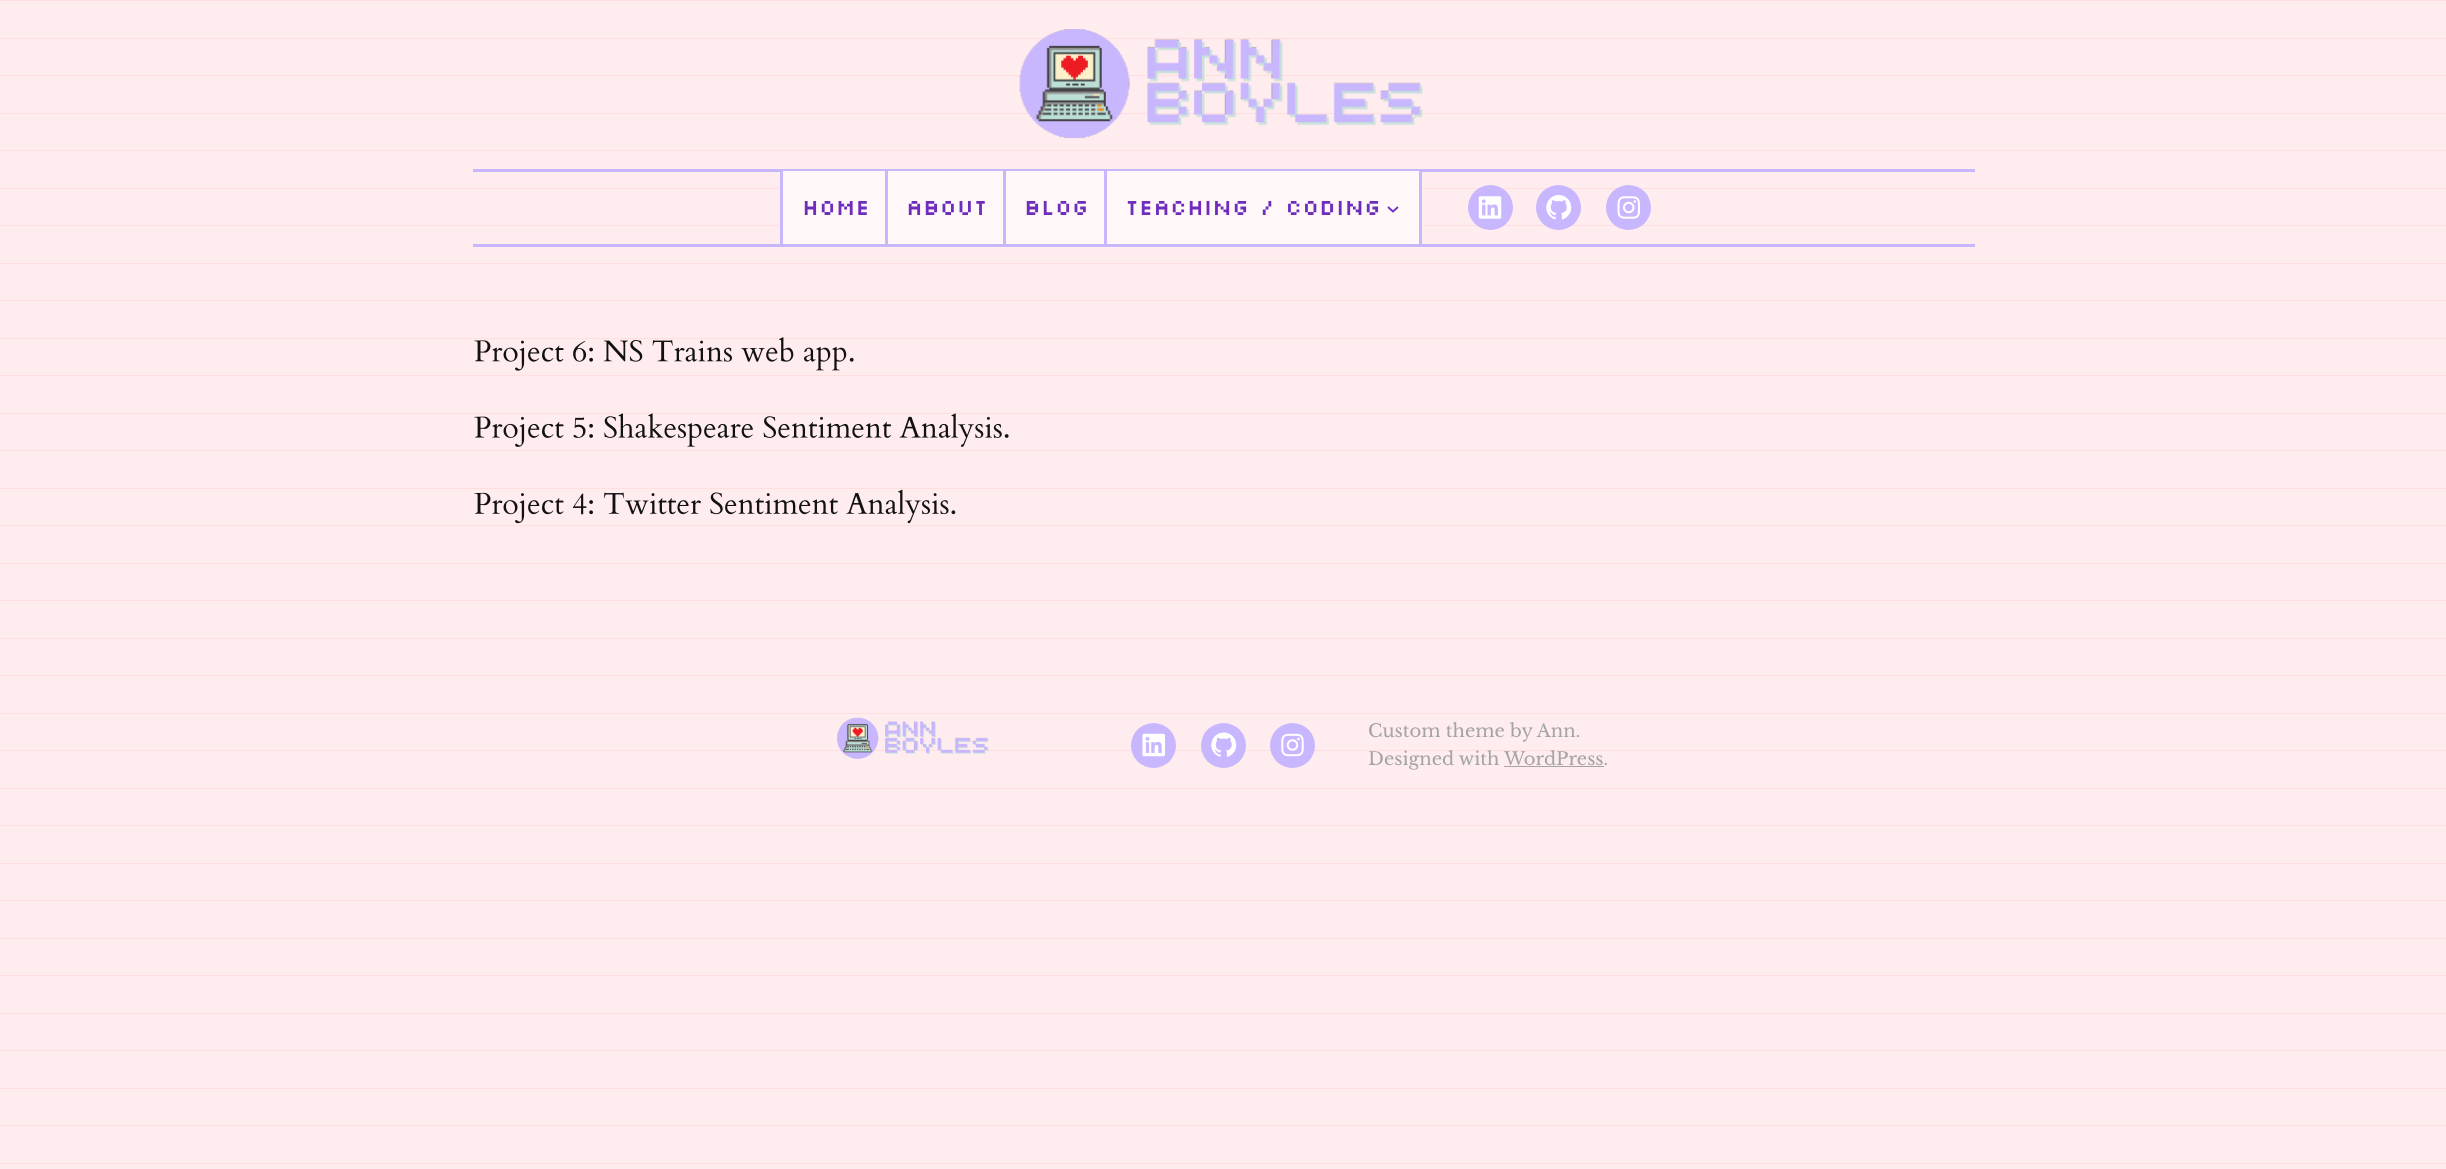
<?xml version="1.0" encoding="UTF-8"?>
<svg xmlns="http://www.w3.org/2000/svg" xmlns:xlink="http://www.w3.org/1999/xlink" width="2446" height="1169">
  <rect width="100%" height="100%" fill="#ffecef" />
  <image x="0" y="0" width="2446" height="1164" xlink:href="image1.png" />
  <image x="1019" y="29" width="404" height="110" xlink:href="image2.png" />
  <rect x="473" y="169" width="1502" height="3" fill="#c8b6ff" />
  <rect x="783" y="171" width="102" height="73" fill="#fff7f8" />
  <rect x="780" y="171" width="3" height="73" fill="#c8b6ff" />
  <rect x="888" y="171" width="115" height="73" fill="#fff7f8" />
  <rect x="885" y="171" width="3" height="73" fill="#c8b6ff" />
  <rect x="1006" y="171" width="98" height="73" fill="#fff7f8" />
  <rect x="1003" y="171" width="3" height="73" fill="#c8b6ff" />
  <rect x="1107" y="171" width="312" height="73" fill="#fff7f8" />
  <rect x="1419" y="171" width="3" height="73" fill="#c8b6ff" />
  <rect x="1104" y="171" width="3" height="73" fill="#c8b6ff" />
  <path d="M 1388 207 l 5 4.5 l 5 -4.5" fill="none" stroke="#6f2dbd" stroke-width="1.7" />
  <circle cx="1490.5" cy="207.5" r="22.5" fill="#c8b6ff" />
  <image x="1478" y="196" width="24" height="23" xlink:href="image3.png" />
  <circle cx="1558.5" cy="207.5" r="22.5" fill="#c8b6ff" />
  <image x="1546" y="195" width="26" height="25" xlink:href="image4.png" />
  <circle cx="1628.5" cy="207.5" r="22.5" fill="#c8b6ff" />
  <image x="1617" y="196" width="23" height="23" xlink:href="image5.png" />
  <rect x="473" y="244" width="1502" height="3" fill="#c8b6ff" />
  <image x="474" y="337" width="380" height="34" xlink:href="image6.png" />
  <image x="474" y="413" width="535" height="34" xlink:href="image7.png" />
  <image x="474" y="489" width="482" height="35" xlink:href="image8.png" />
  <image x="837" y="717" width="152" height="42" xlink:href="image9.png" />
  <circle cx="1153.5" cy="745.5" r="22.5" fill="#c8b6ff" />
  <image x="1142" y="733" width="23" height="24" xlink:href="image10.png" />
  <circle cx="1223.5" cy="745.5" r="22.5" fill="#c8b6ff" />
  <image x="1211" y="732" width="26" height="25" xlink:href="image11.png" />
  <circle cx="1292.5" cy="745.5" r="22.5" fill="#c8b6ff" />
  <image x="1281" y="733" width="23" height="24" xlink:href="image12.png" />
  <rect x="1504" y="766" width="100" height="1" fill="#a4a4a4" />
  <text x="802" y="215" style="font-family: Silkscreen; font-size: 22.5px; fill: #6f2dbd">Home</text>
  <text x="906" y="215" style="font-family: Silkscreen; font-size: 22.5px; fill: #6f2dbd">About</text>
  <text x="1024" y="215" style="font-family: Silkscreen; font-size: 22.5px; fill: #6f2dbd">Blog</text>
  <text x="1125" y="215" style="font-family: Silkscreen; font-size: 22.5px; fill: #6f2dbd">Teaching / Coding</text>
  <text x="1368" y="737" style="font-family: Libre Baskerville; font-size: 18px; fill: #a4a4a4">Custom theme by Ann.</text>
  <text x="1368" y="765" style="font-family: Libre Baskerville; font-size: 18px; fill: #a4a4a4">Designed with</text>
  <text x="1504" y="765" style="font-family: Libre Baskerville; font-size: 18px; fill: #a4a4a4">WordPress.</text>
</svg>
